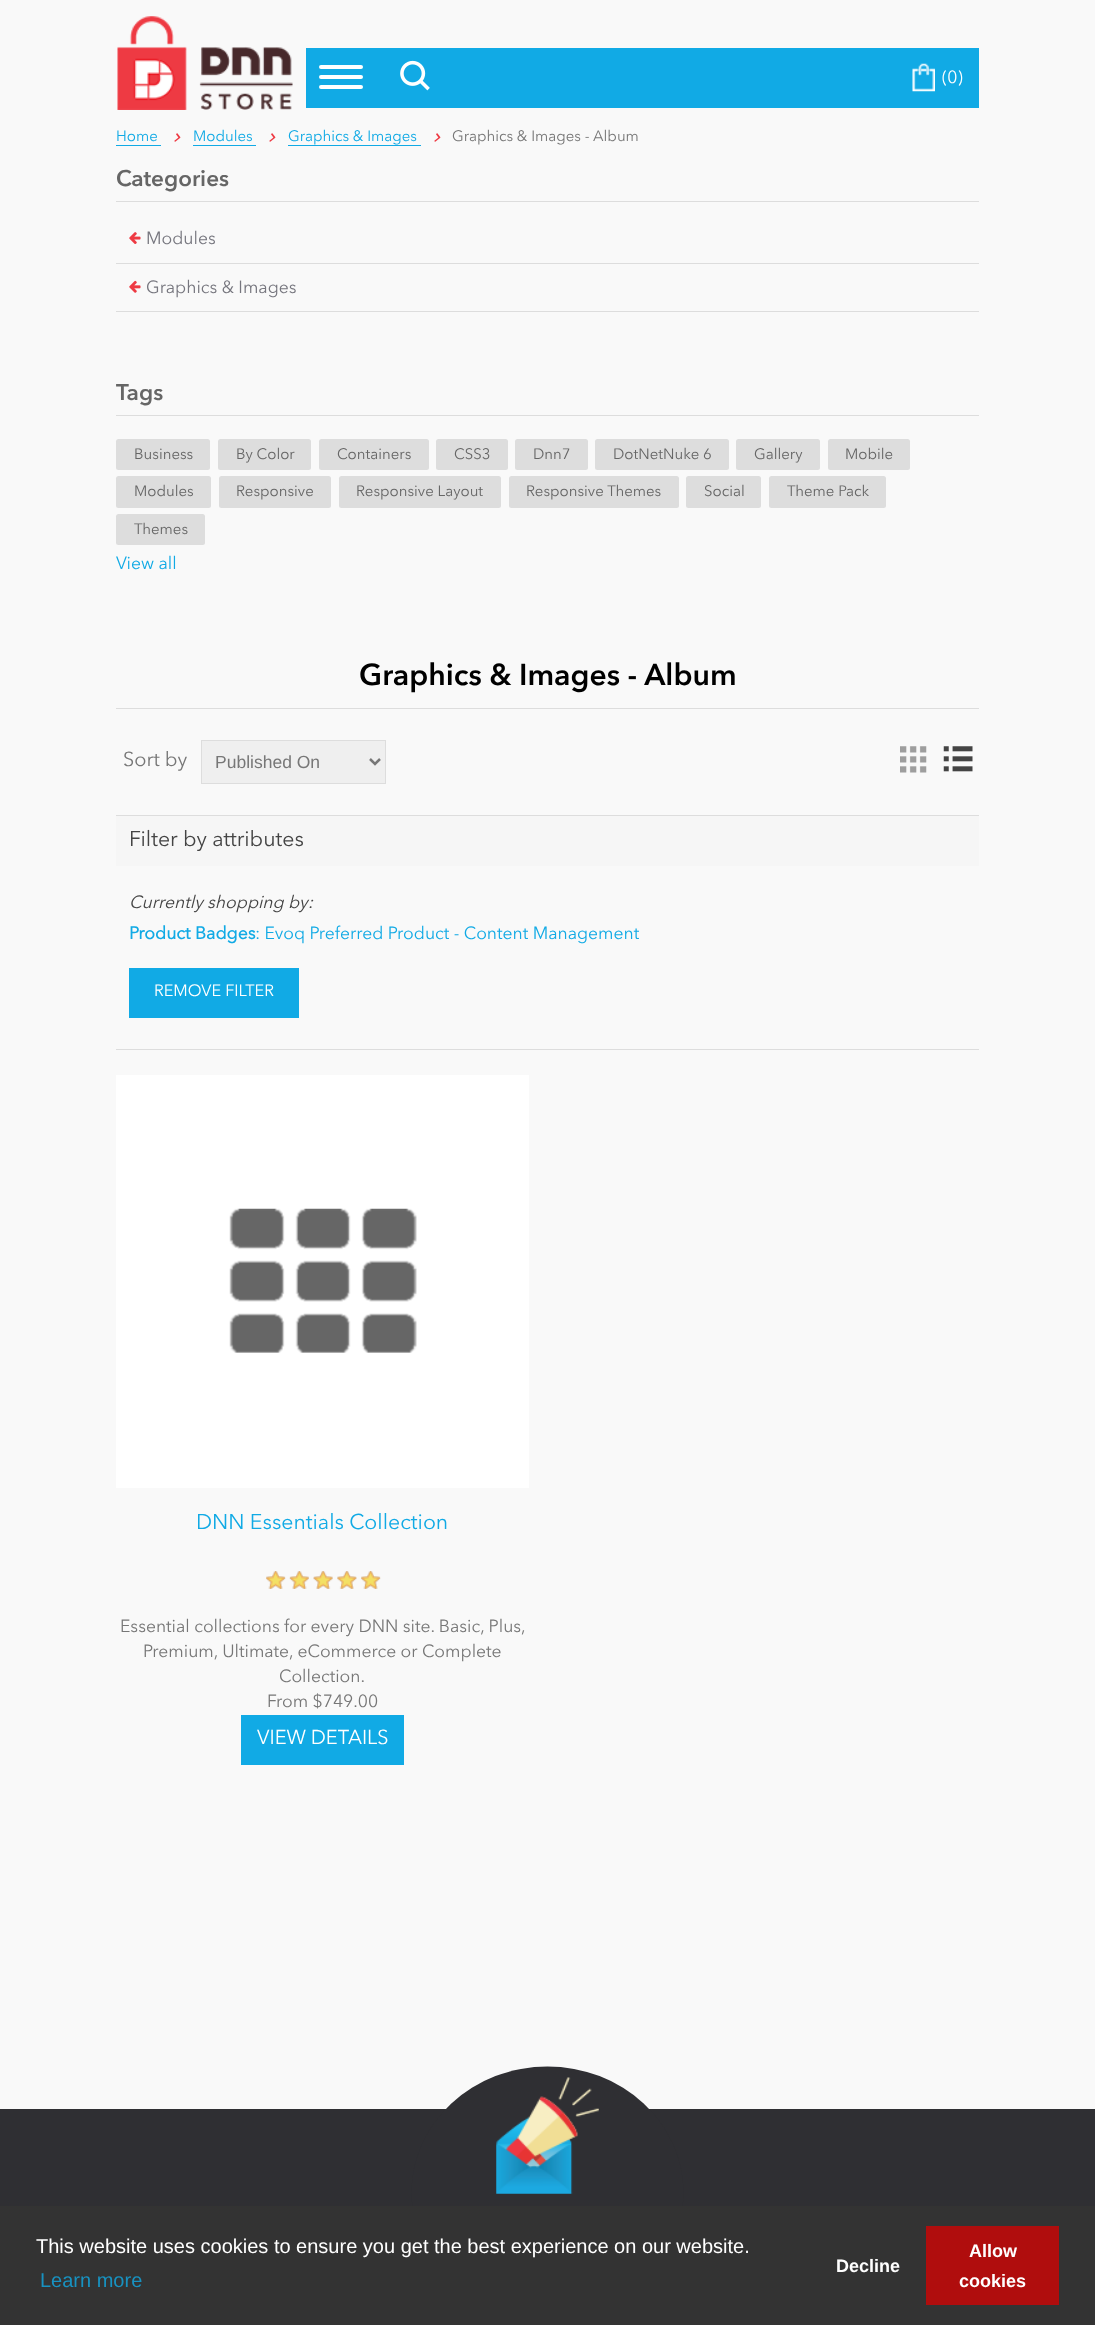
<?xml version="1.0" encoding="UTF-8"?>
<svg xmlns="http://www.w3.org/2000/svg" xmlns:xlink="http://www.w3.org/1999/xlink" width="1095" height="2325">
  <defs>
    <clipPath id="clip1"><rect x="116" y="1513" width="413" height="52" /></clipPath>
  </defs>
  <rect width="100%" height="100%" fill="#f9f9f9" />
  <image x="117" y="16" width="176" height="94" xlink:href="image1.png" />
  <rect x="306" y="48" width="673" height="60" fill="#11aae5" />
  <rect x="319" y="75" width="44" height="4" rx="2" fill="#ffffff" />
  <rect x="319" y="65" width="44" height="4" rx="2" fill="#ffffff" />
  <rect x="319" y="85" width="44" height="4" rx="2" fill="#ffffff" />
  <image x="400" y="60" width="30" height="31" xlink:href="image2.png" />
  <image x="912" y="63" width="23" height="29" xlink:href="image3.png" />
  <rect x="116" y="145" width="45" height="1" fill="#11aae5" />
  <image x="174" y="133" width="7" height="9" xlink:href="image4.png" />
  <rect x="193" y="145" width="63" height="1" fill="#11aae5" />
  <image x="269" y="133" width="7" height="9" xlink:href="image4.png" />
  <rect x="288" y="145" width="133" height="1" fill="#11aae5" />
  <image x="434" y="133" width="7" height="9" xlink:href="image4.png" />
  <rect x="116" y="201" width="863" height="1" fill="#dddddd" />
  <rect x="116" y="263" width="863" height="1" fill="#dddddd" />
  <image x="129" y="232" width="12" height="12" xlink:href="image5.png" />
  <rect x="116" y="311" width="863" height="1" fill="#dddddd" />
  <image x="129" y="280" width="12" height="13" xlink:href="image6.png" />
  <rect x="116" y="415" width="863" height="1" fill="#dddddd" />
  <rect x="116" y="439" width="94" height="31" rx="2.5" fill="#dddddd" />
  <rect x="218" y="439" width="93" height="31" rx="2.5" fill="#dddddd" />
  <rect x="319" y="439" width="110" height="31" rx="2.5" fill="#dddddd" />
  <rect x="436" y="439" width="72" height="31" rx="2.5" fill="#dddddd" />
  <rect x="515" y="439" width="73" height="31" rx="2.5" fill="#dddddd" />
  <rect x="595" y="439" width="134" height="31" rx="2.5" fill="#dddddd" />
  <rect x="736" y="439" width="84" height="31" rx="2.5" fill="#dddddd" />
  <rect x="828" y="439" width="82" height="31" rx="2.5" fill="#dddddd" />
  <rect x="116" y="476" width="95" height="32" rx="2.5" fill="#dddddd" />
  <rect x="219" y="476" width="112" height="32" rx="2.5" fill="#dddddd" />
  <rect x="339" y="476" width="162" height="32" rx="2.5" fill="#dddddd" />
  <rect x="509" y="476" width="170" height="32" rx="2.5" fill="#dddddd" />
  <rect x="686" y="476" width="75" height="32" rx="2.5" fill="#dddddd" />
  <rect x="769" y="476" width="117" height="32" rx="2.5" fill="#dddddd" />
  <rect x="116" y="514" width="89" height="31" rx="2.5" fill="#dddddd" />
  <rect x="116" y="708" width="863" height="1" fill="#dddddd" />
  <rect x="116" y="815" width="863" height="1" fill="#dddddd" />
  <rect x="201.5" y="740.5" width="184" height="43" fill="#efefef" stroke="#dddddd" />
  <path d="M 370 759 l 5 5 l 5 -5" fill="none" stroke="#777777" stroke-width="2.5" />
  <image x="900" y="746" width="27" height="27" xlink:href="image7.png" />
  <image x="943" y="746" width="30" height="26" xlink:href="image8.png" />
  <rect x="116" y="1049" width="863" height="1" fill="#dddddd" />
  <rect x="116" y="816" width="863" height="50" fill="#f6f6f6" />
  <rect x="129" y="968" width="170" height="50" fill="#11aae5" />
  <rect x="116" y="1075" width="413" height="413" fill="#ffffff" />
  <image x="229" y="1208" width="188" height="145" xlink:href="image9.png" />
  <image x="266" y="1571" width="115" height="18" xlink:href="image10.png" />
  <image x="266" y="1571" width="115" height="18" xlink:href="image11.png" />
  <rect x="241" y="1715" width="163" height="50" fill="#11aae5" />
  <rect y="2109" width="1095" height="97" fill="#2f2f33" />
  <ellipse cx="547.5" cy="2192.5" rx="136" ry="126" fill="#2f2f33" />
  <image x="496" y="2077" width="103" height="117" xlink:href="image12.png" />
  <rect y="2206" width="1095" height="119" fill="#333333" />
  <rect x="926" y="2226" width="133" height="79" fill="#b00d0d" />
  <text x="942" y="83" style="font-family: Avenir Next; font-size: 17.5px; fill: #ffffff">(0)</text>
  <text x="116" y="141" style="font-family: Avenir Next; font-size: 15px; fill: #11aae5">Home</text>
  <text x="193" y="141" style="font-family: Avenir Next; font-size: 15px; fill: #11aae5">Modules</text>
  <text x="288" y="141" style="font-family: Avenir Next; font-size: 15px; fill: #11aae5">Graphics &amp; Images</text>
  <text x="452" y="141" style="font-family: Avenir Next; font-size: 15px; fill: #777777">Graphics &amp; Images - Album</text>
  <text x="116" y="186" style="font-family: Avenir Next; font-size: 22.5px; font-weight: 600; fill: #666666">Categories</text>
  <text x="146" y="244" style="font-family: Avenir Next; font-size: 17.5px; fill: #76767e">Modules</text>
  <text x="146" y="293" style="font-family: Avenir Next; font-size: 17.5px; fill: #76767e">Graphics &amp; Images</text>
  <text x="116" y="400" style="font-family: Avenir Next; font-size: 22.5px; font-weight: 600; fill: #666666">Tags</text>
  <text x="134" y="459" style="font-family: Avenir Next; font-size: 15px; fill: #666666">Business</text>
  <text x="236" y="459" style="font-family: Avenir Next; font-size: 15px; fill: #666666">By Color</text>
  <text x="337" y="459" style="font-family: Avenir Next; font-size: 15px; fill: #666666">Containers</text>
  <text x="454" y="459" style="font-family: Avenir Next; font-size: 15px; fill: #666666">CSS3</text>
  <text x="533" y="459" style="font-family: Avenir Next; font-size: 15px; fill: #666666">Dnn7</text>
  <text x="613" y="459" style="font-family: Avenir Next; font-size: 15px; fill: #666666">DotNetNuke 6</text>
  <text x="754" y="459" style="font-family: Avenir Next; font-size: 15px; fill: #666666">Gallery</text>
  <text x="845" y="459" style="font-family: Avenir Next; font-size: 15px; fill: #666666">Mobile</text>
  <text x="134" y="496" style="font-family: Avenir Next; font-size: 15px; fill: #666666">Modules</text>
  <text x="236" y="496" style="font-family: Avenir Next; font-size: 15px; fill: #666666">Responsive</text>
  <text x="356" y="496" style="font-family: Avenir Next; font-size: 15px; fill: #666666">Responsive Layout</text>
  <text x="526" y="496" style="font-family: Avenir Next; font-size: 15px; fill: #666666">Responsive Themes</text>
  <text x="704" y="496" style="font-family: Avenir Next; font-size: 15px; fill: #666666">Social</text>
  <text x="787" y="496" style="font-family: Avenir Next; font-size: 15px; fill: #666666">Theme Pack</text>
  <text x="134" y="534" style="font-family: Avenir Next; font-size: 15px; fill: #666666">Themes</text>
  <text x="116" y="569" style="font-family: Avenir Next; font-size: 17.5px; fill: #11aae5">View all</text>
  <text x="359" y="685" style="font-family: Avenir Next; font-size: 30px; font-weight: 600; fill: #000000">Graphics &amp; Images - Album</text>
  <text x="123" y="766" style="font-family: Avenir Next; font-size: 20px; fill: #777777">Sort by</text>
  <text x="215" y="768" style="font-family: Liberation Sans; font-size: 17.5px; fill: #777777">Published On</text>
  <text x="129" y="846" style="font-family: Avenir Next; font-size: 21.25px; fill: #444444">Filter by attributes</text>
  <text x="129" y="908" style="font-family: Avenir Next; font-size: 17.5px; font-style: italic; fill: #444444">Currently shopping by:</text>
  <text x="129" y="939" style="font-family: Avenir Next; font-size: 17.5px; font-weight: bold; fill: #11aae5">Product Badges</text>
  <text x="255" y="939" style="font-family: Avenir Next; font-size: 17.5px; fill: #11aae5">: Evoq Preferred Product - Content Management</text>
  <text x="154" y="996" style="font-family: Avenir Next; font-size: 16.25px; fill: #ffffff">REMOVE FILTER</text>
  <g clip-path="url(#clip1)">
    <text x="196" y="1529" style="font-family: Avenir Next; font-size: 21.25px; fill: #11aae5">DNN Essentials Collection</text>
  </g>
  <text x="120" y="1632" style="font-family: Avenir Next; font-size: 17.5px; fill: #777777">Essential collections for every DNN site. Basic, Plus,</text>
  <text x="143" y="1657" style="font-family: Avenir Next; font-size: 17.5px; fill: #777777">Premium, Ultimate, eCommerce or Complete</text>
  <text x="279" y="1682" style="font-family: Avenir Next; font-size: 17.5px; fill: #777777">Collection.</text>
  <text x="267" y="1707" style="font-family: Avenir Next; font-size: 17.5px; fill: #777777">From $749.00</text>
  <text x="257" y="1744" style="font-family: Avenir Next; font-size: 20px; fill: #ffffff">VIEW DETAILS</text>
  <text x="36" y="2253" style="font-family: Liberation Sans; font-size: 20px; fill: #ffffff">This website uses cookies to ensure you get the best experience on our website.</text>
  <text x="40" y="2287" style="font-family: Liberation Sans; font-size: 20px; fill: #1892c1">Learn more</text>
  <text x="836" y="2272" style="font-family: Liberation Sans; font-size: 18px; font-weight: bold; fill: #ffffff">Decline</text>
  <text x="969" y="2257" style="font-family: Liberation Sans; font-size: 18px; font-weight: bold; fill: #ffffff">Allow</text>
  <text x="959" y="2287" style="font-family: Liberation Sans; font-size: 18px; font-weight: bold; fill: #ffffff">cookies</text>
</svg>
